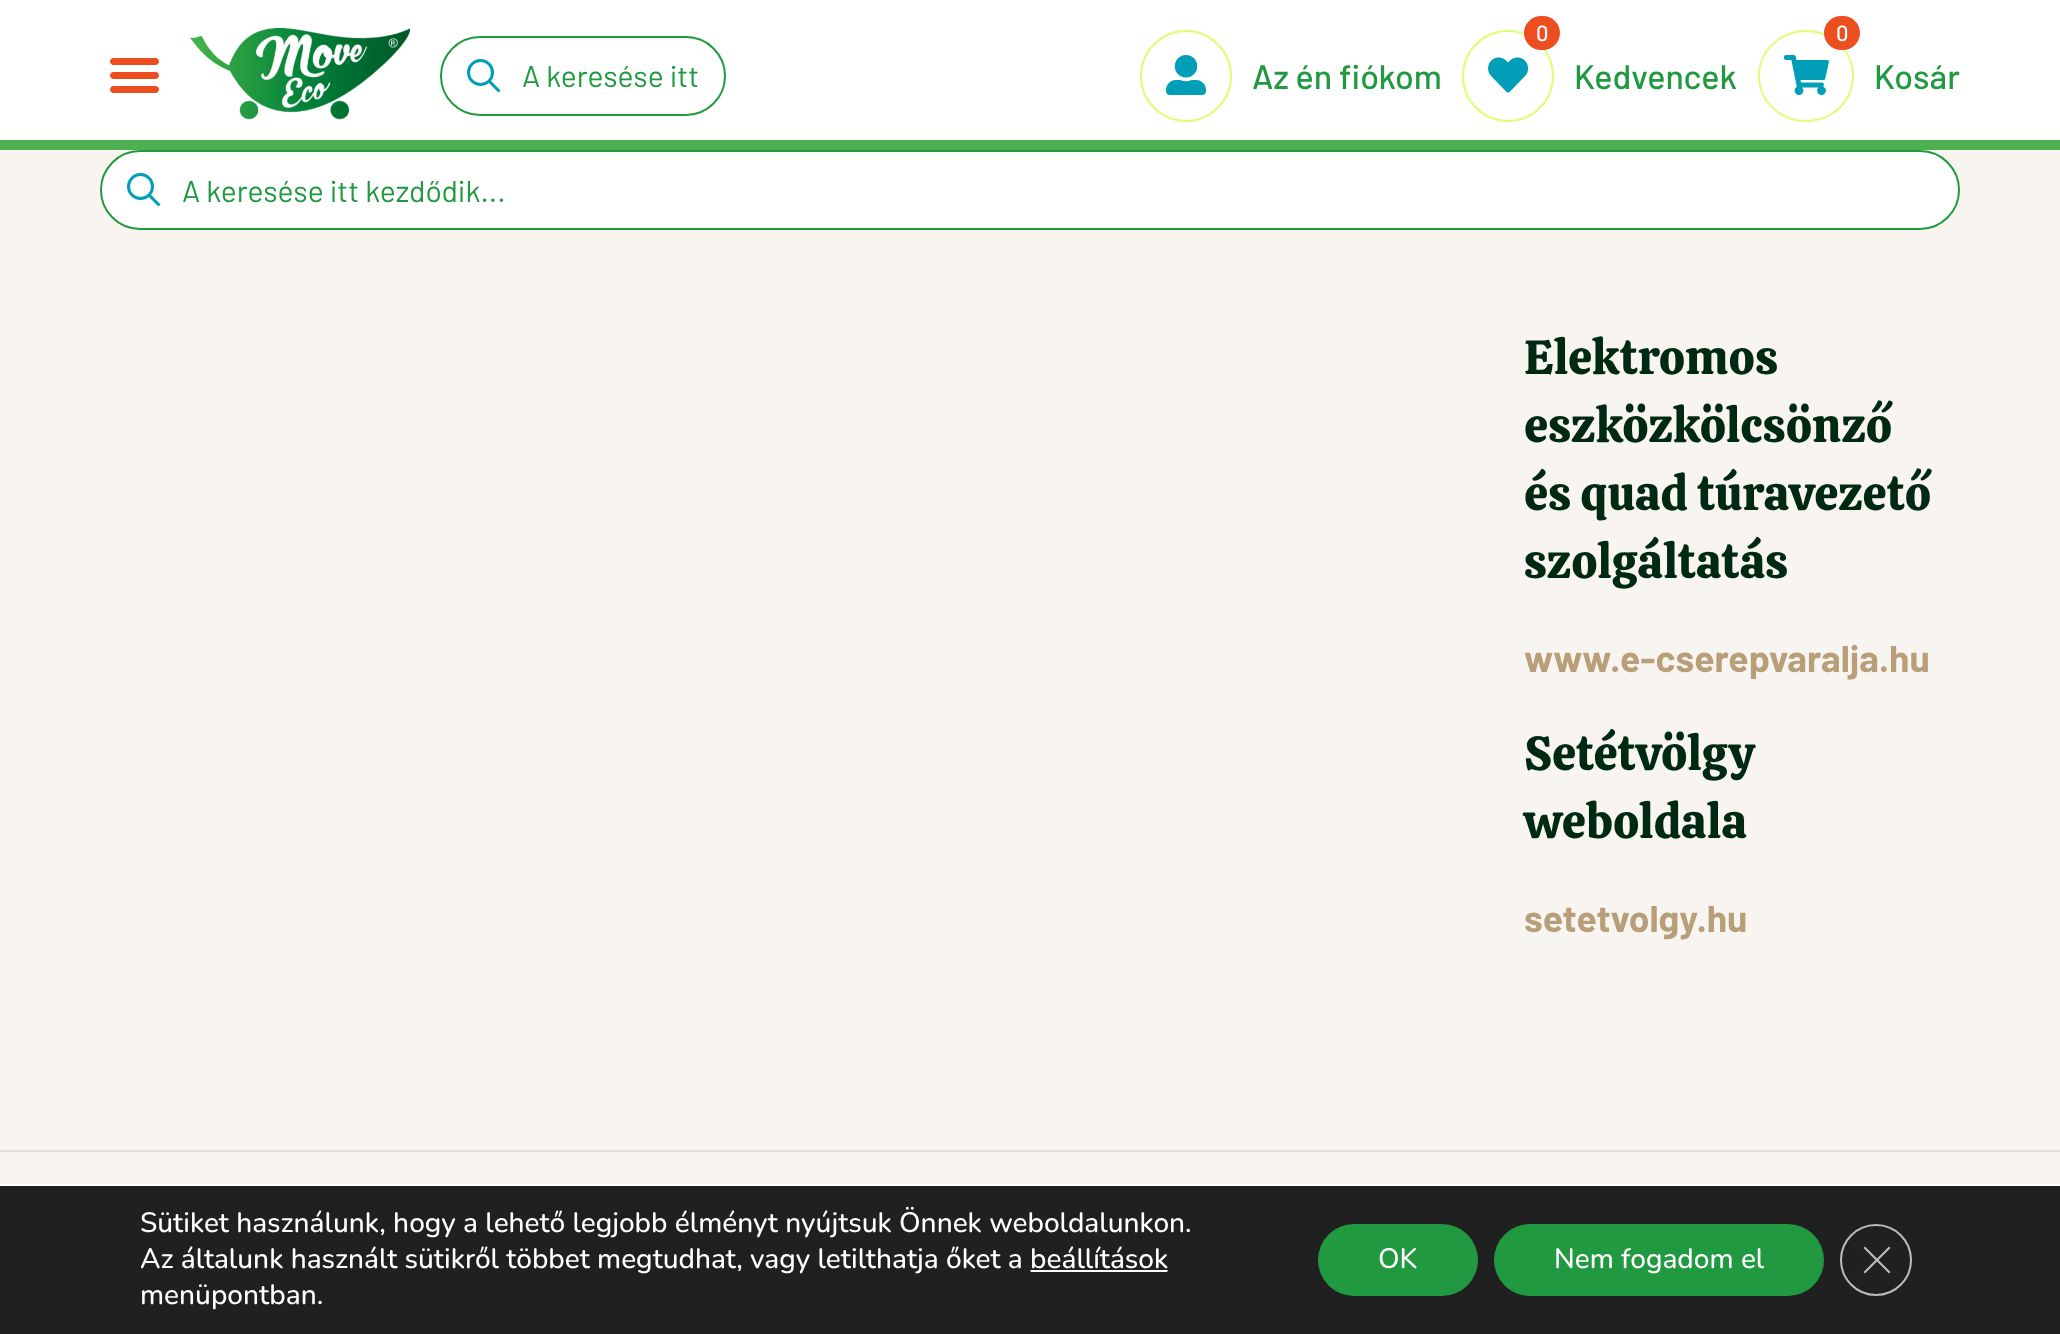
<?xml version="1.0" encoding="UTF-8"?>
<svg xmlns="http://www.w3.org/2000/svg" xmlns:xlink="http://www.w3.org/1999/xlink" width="2060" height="1334">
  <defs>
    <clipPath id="clip1"><rect x="1030" y="1242" width="138" height="36" rx="10" /></clipPath>
  </defs>
  <rect width="100%" height="100%" fill="#f8f5f1" />
  <rect width="2060" height="140" fill="#ffffff" />
  <image x="110" y="58" width="49" height="35" xlink:href="image1.png" />
  <image x="190" y="27" width="220" height="93" xlink:href="image2.png" />
  <rect x="441" y="37" width="284" height="78" rx="39" fill="none" stroke="#209940" stroke-width="2" />
  <circle cx="480.5" cy="72.5" r="12" fill="none" stroke="#009fb7" stroke-width="3" />
  <path d="M 489 81 l 10.5 10.5" fill="none" stroke="#009fb7" stroke-width="3" />
  <circle cx="1186" cy="76" r="45" fill="none" stroke="#dbff76" stroke-width="2" />
  <image x="1166" y="55" width="40" height="40" xlink:href="image3.png" />
  <circle cx="1508" cy="76" r="45" fill="none" stroke="#dbff76" stroke-width="2" />
  <rect x="1524" y="16" width="36" height="34" rx="17" fill="#ec4e20" />
  <image x="1488" y="57" width="41" height="36" xlink:href="image4.png" />
  <path d="M 1806 31 c 26 0 47 20 47 45 c 0 25 -21 45 -47 45 c -26 0 -47 -20 -47 -45 c 0 -25 21 -45 47 -45 z" fill="none" stroke="#dbff76" stroke-width="2" />
  <rect x="1824" y="16" width="36" height="34" rx="17" fill="#ec4e20" />
  <image x="1784" y="55" width="45" height="40" xlink:href="image5.png" />
  <rect y="140" width="2060" height="10" fill="#4caf50" />
  <rect x="101" y="151" width="1858" height="78" rx="39" fill="#ffffff" stroke="#209940" stroke-width="2" />
  <circle cx="140.5" cy="186.5" r="12" fill="none" stroke="#009fb7" stroke-width="3" />
  <path d="M 149 195 l 10.5 10.5" fill="none" stroke="#009fb7" stroke-width="3" />
  <rect y="1150" width="2060" height="2" fill="#dfddd9" />
  <rect y="1186" width="2060" height="148" fill="#202020" />
  <rect y="1184" width="2060" height="2" fill="#ffffff" />
  <g clip-path="url(#clip1)">
    <rect x="1030" y="1270" width="138" height="2" fill="#ffffff" />
  </g>
  <rect x="1318" y="1224" width="160" height="72" rx="36" fill="#209940" />
  <rect x="1494" y="1224" width="330" height="72" rx="36" fill="#209940" />
  <circle cx="1876" cy="1260" r="35" fill="none" stroke="#bcbcbc" stroke-width="2" />
  <path d="M 1889 1246.5 l 1.5 1.5 l -25.5 25.5 l -1.5 -1.5 z" fill="#bcbcbc" />
  <path d="M 1863.5 1248 l 1.5 -1.5 l 25.5 25.5 l -1.5 1.5 z" fill="#bcbcbc" />
  <text x="522" y="87" style="font-family: Barlow; font-size: 30px; fill: #209940">A keresése itt</text>
  <text x="1252" y="89" style="font-family: Barlow; font-size: 34px; font-weight: 500; fill: #209940">Az én fiókom</text>
  <text x="1536" y="41" style="font-family: Barlow; font-size: 22px; font-weight: 500; fill: #ffffff">0</text>
  <text x="1574" y="89" style="font-family: Barlow; font-size: 34px; font-weight: 500; fill: #209940">Kedvencek</text>
  <text x="1836" y="41" style="font-family: Barlow; font-size: 22px; font-weight: 500; fill: #ffffff">0</text>
  <text x="1874" y="89" style="font-family: Barlow; font-size: 34px; font-weight: 500; fill: #209940">Kosár</text>
  <text x="182" y="202" style="font-family: Barlow; font-size: 30px; fill: #209940">A keresése itt kezdődik...</text>
  <text x="1524" y="374" style="font-family: Calistoga; font-size: 48px; fill: #002912">Elektromos</text>
  <text x="1524" y="442" style="font-family: Calistoga; font-size: 48px; fill: #002912">eszközkölcsönző</text>
  <text x="1524" y="510" style="font-family: Calistoga; font-size: 48px; fill: #002912">és quad túravezető</text>
  <text x="1524" y="578" style="font-family: Calistoga; font-size: 48px; fill: #002912">szolgáltatás</text>
  <text x="1524" y="672" style="font-family: Barlow; font-size: 37.25px; font-weight: bold; fill: #b99f79">www.e-cserepvaralja.hu</text>
  <text x="1524" y="770" style="font-family: Calistoga; font-size: 48px; fill: #002912">Setétvölgy</text>
  <text x="1524" y="838" style="font-family: Calistoga; font-size: 48px; fill: #002912">weboldala</text>
  <text x="1524" y="932" style="font-family: Barlow; font-size: 37.25px; font-weight: bold; fill: #b99f79">setetvolgy.hu</text>
  <text x="140" y="1232" style="font-family: Nunito; font-size: 28px; font-weight: 500; fill: #ffffff">Sütiket használunk, hogy a lehető legjobb élményt nyújtsuk Önnek weboldalunkon.</text>
  <text x="140" y="1268" style="font-family: Nunito; font-size: 28px; font-weight: 500; fill: #ffffff">Az általunk használt sütikről többet megtudhat, vagy letilthatja őket a beállítások</text>
  <text x="140" y="1304" style="font-family: Nunito; font-size: 28px; font-weight: 500; fill: #ffffff">menüpontban.</text>
  <text x="1378" y="1268" style="font-family: Nunito; font-size: 28px; font-weight: 500; fill: #ffffff">OK</text>
  <text x="1554" y="1268" style="font-family: Nunito; font-size: 28px; font-weight: 500; fill: #ffffff">Nem fogadom el</text>
</svg>
